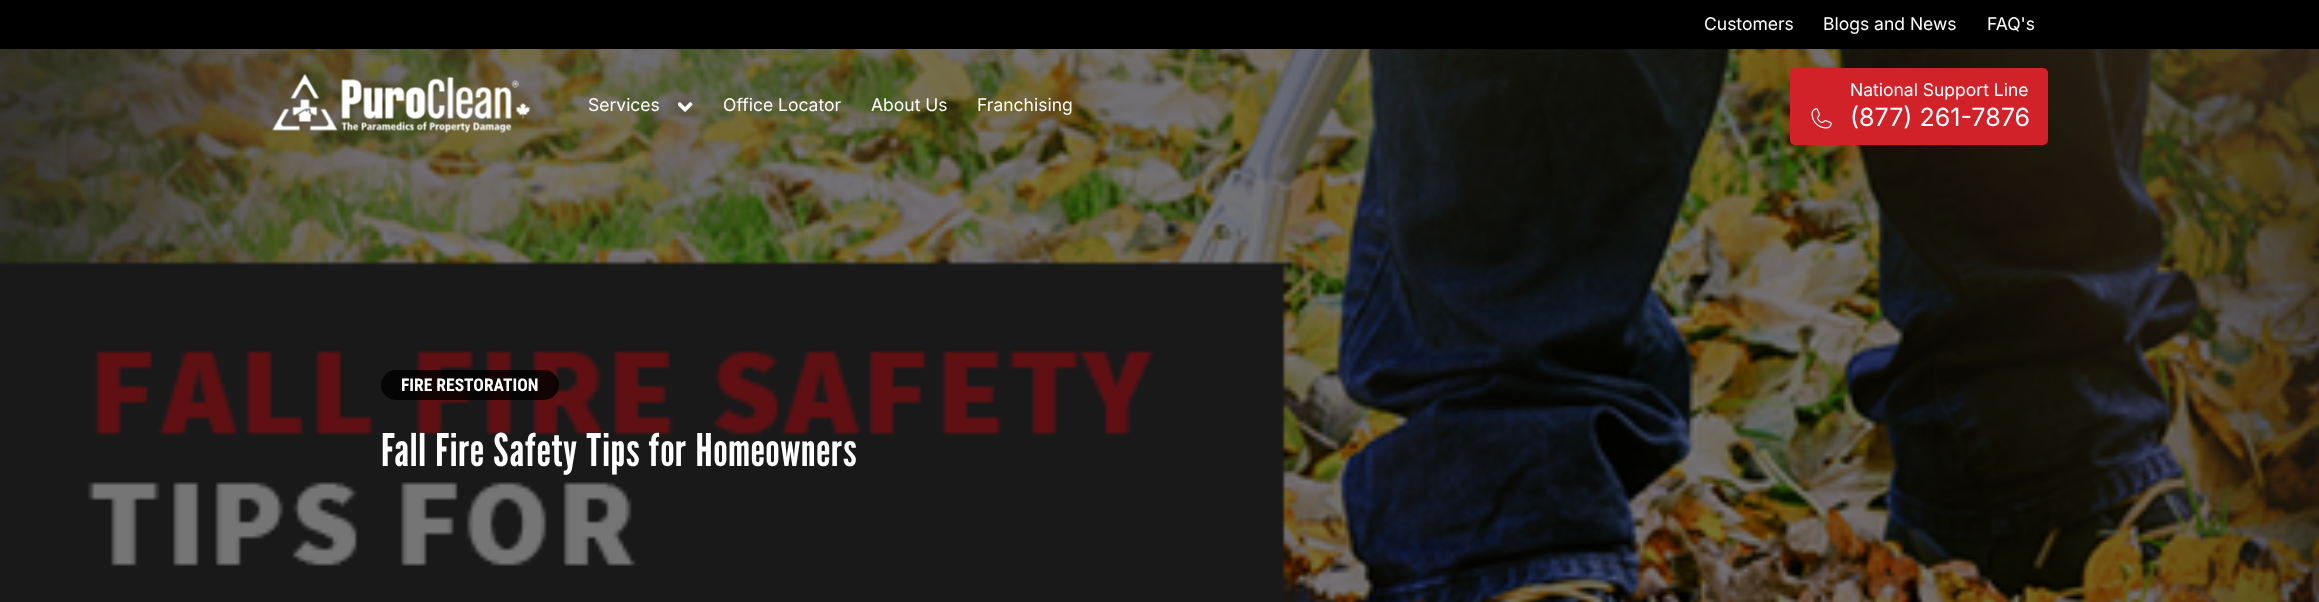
<?xml version="1.0" encoding="UTF-8"?>
<svg xmlns="http://www.w3.org/2000/svg" xmlns:xlink="http://www.w3.org/1999/xlink" width="2319" height="602">
  <rect width="100%" height="100%" fill="#ffffff" />
  <rect width="2319" height="49" fill="#000000" />
  <image x="0" y="49" width="2319" height="553" xlink:href="image4.png" />
  <image x="272" y="74" width="258" height="59" xlink:href="image1.png" />
  <image x="678" y="102" width="15" height="10" xlink:href="image2.png" />
  <rect x="1790" y="68" width="258" height="77" rx="5" fill="#d12229" />
  <image x="1811" y="108" width="21" height="21" xlink:href="image3.png" />
  <rect x="381" y="370" width="178" height="30" rx="15" fill="#000000" fill-opacity="0.8" />
  <text x="1704" y="30" style="font-family: Inter; font-size: 17.5px; fill: #ffffff">Customers</text>
  <text x="1823" y="30" style="font-family: Inter; font-size: 17.5px; fill: #ffffff">Blogs and News</text>
  <text x="1987" y="30" style="font-family: Inter; font-size: 17.5px; fill: #ffffff">FAQ's</text>
  <text x="588" y="111" style="font-family: Inter; font-size: 17.5px; fill: #ffffff">Services</text>
  <text x="723" y="111" style="font-family: Inter; font-size: 17.5px; fill: #ffffff">Office Locator</text>
  <text x="871" y="111" style="font-family: Inter; font-size: 17.5px; fill: #ffffff">About Us</text>
  <text x="977" y="111" style="font-family: Inter; font-size: 17.5px; fill: #ffffff">Franchising</text>
  <text x="1850" y="96" style="font-family: Inter; font-size: 17.5px; fill: #ffffff">National Support Line</text>
  <text x="1850" y="126" style="font-family: Inter; font-size: 25px; fill: #ffffff">(877) 261-7876</text>
  <text x="401" y="391" style="font-family: Roboto Condensed; font-size: 17.5px; font-weight: bold; fill: #ffffff">FIRE RESTORATION</text>
  <text x="381" y="466" style="font-family: League Gothic; font-size: 45px; letter-spacing: 1.25px; fill: #ffffff">Fall Fire Safety Tips for Homeowners</text>
</svg>
